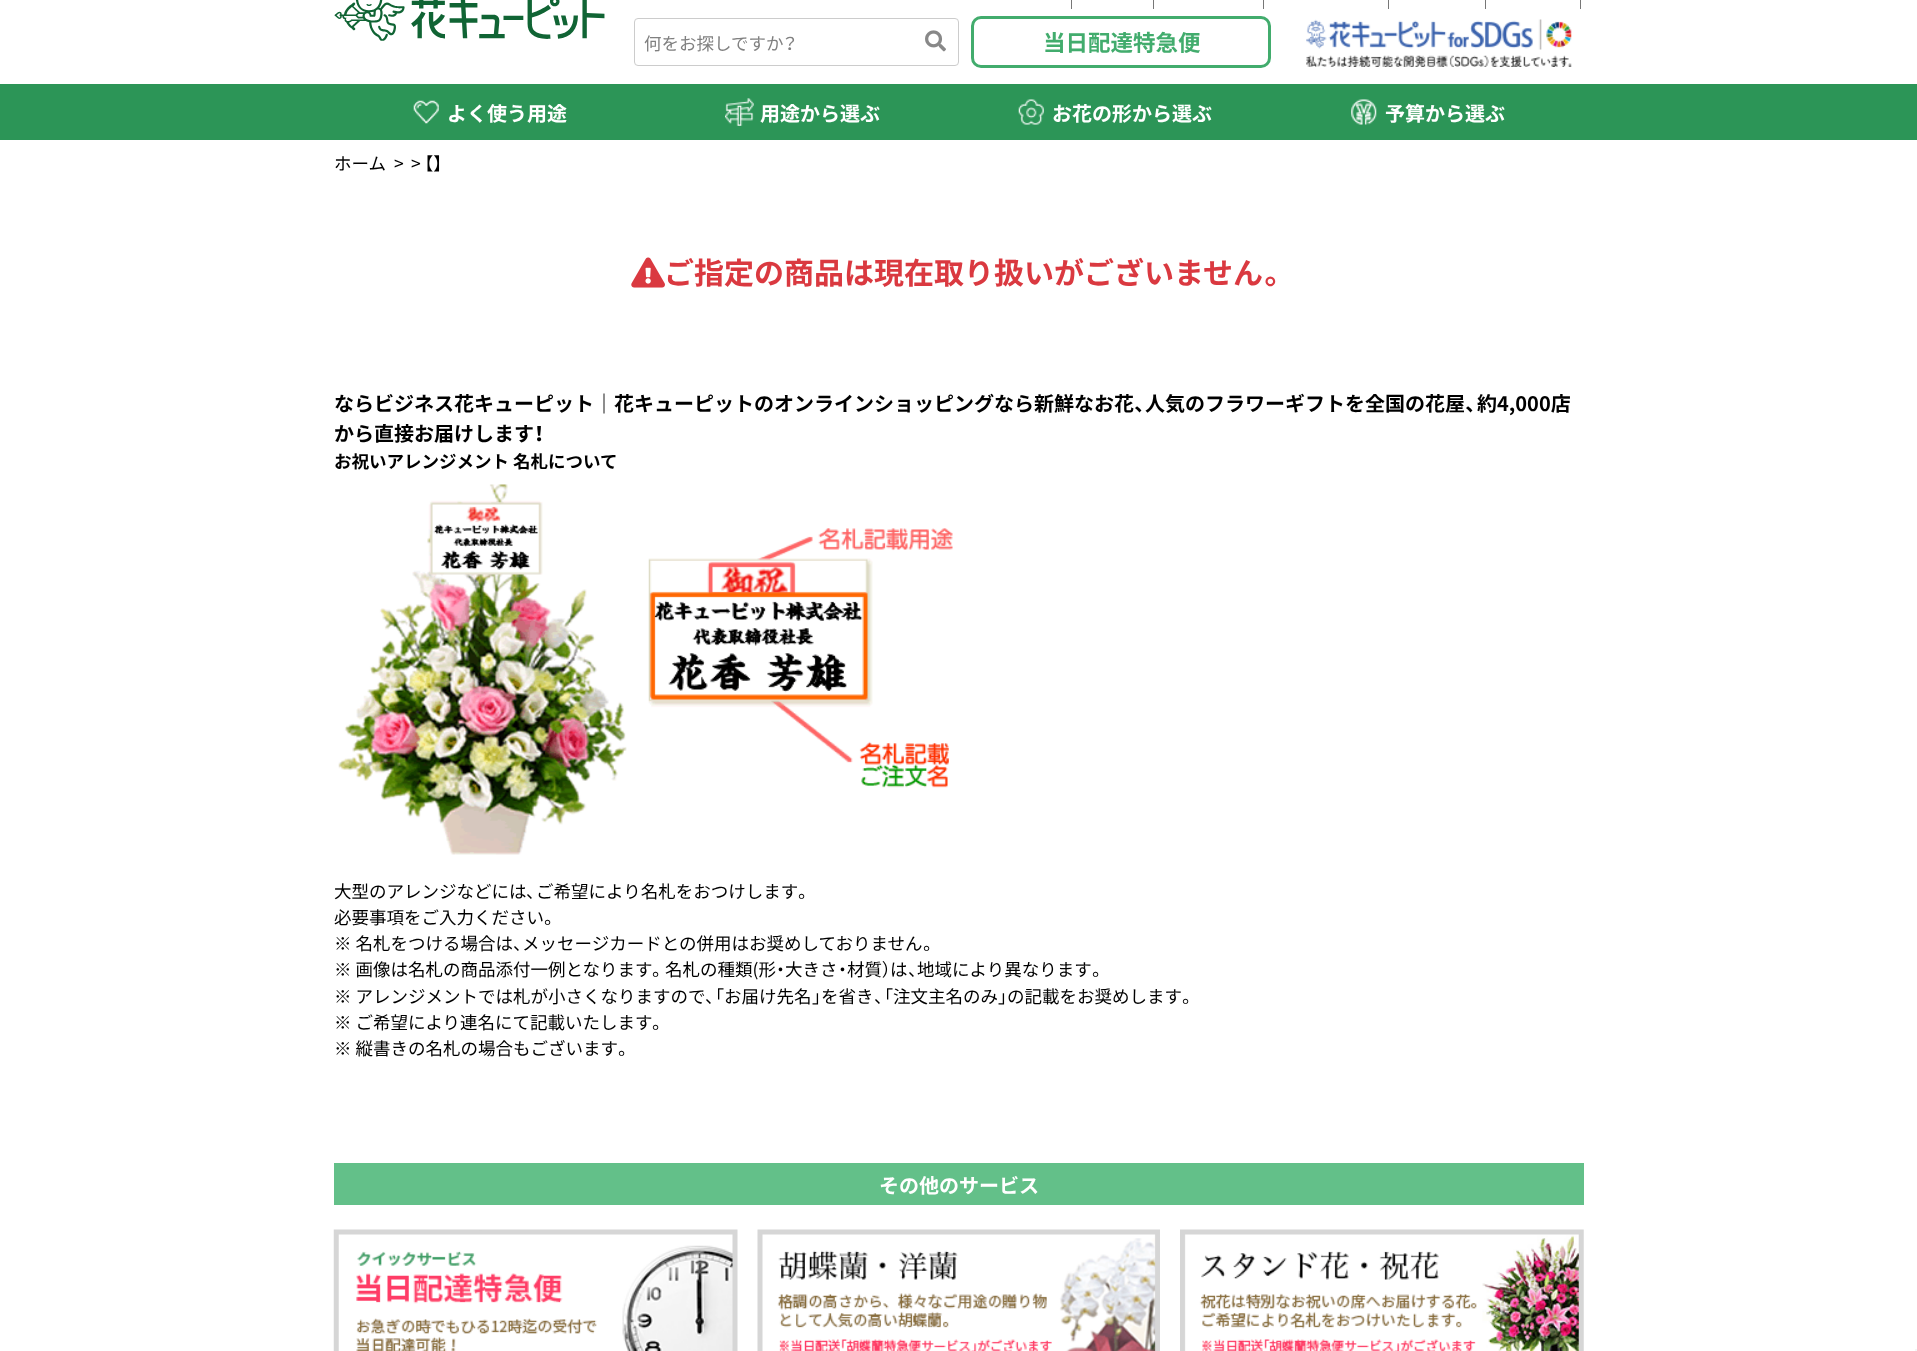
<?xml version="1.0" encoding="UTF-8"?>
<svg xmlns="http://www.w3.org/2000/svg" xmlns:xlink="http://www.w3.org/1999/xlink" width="1917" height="1351">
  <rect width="100%" height="100%" fill="#ffffff" />
  <image x="334" y="0" width="271" height="41" xlink:href="image1.png" />
  <rect x="634.5" y="18.5" width="324" height="47" rx="3.5" fill="none" stroke="#cccccc" />
  <image x="925" y="30" width="21" height="22" xlink:href="image2.png" />
  <rect x="1071" width="1" height="9" fill="#777777" />
  <rect x="1153" width="1" height="9" fill="#777777" />
  <rect x="1263" width="1" height="9" fill="#777777" />
  <rect x="1388" width="1" height="9" fill="#777777" />
  <rect x="1485" width="1" height="9" fill="#777777" />
  <rect x="1580" width="1" height="9" fill="#777777" />
  <rect x="972.5" y="17.5" width="297" height="49" rx="8.5" fill="none" stroke="#42ac6d" stroke-width="3" />
  <image x="1306" y="19" width="266" height="48" xlink:href="image3.png" />
  <rect y="84" width="1917" height="56" fill="#2c9557" />
  <image x="413" y="100" width="26" height="24" xlink:href="image4.png" />
  <image x="725" y="98" width="29" height="28" xlink:href="image5.png" />
  <image x="1018" y="99" width="26" height="26" xlink:href="image6.png" />
  <image x="1351" y="99" width="26" height="26" xlink:href="image7.png" />
  <image x="631" y="257" width="34" height="31" xlink:href="image8.png" />
  <image x="338" y="484" width="615" height="371" xlink:href="image9.png" />
  <rect x="334" y="1163" width="1250" height="42" fill="#63c089" />
  <image x="333" y="1229" width="405" height="122" xlink:href="image10.png" />
  <image x="757" y="1229" width="403" height="122" xlink:href="image11.png" />
  <image x="1180" y="1229" width="404" height="122" xlink:href="image12.png" />
  <rect x="1915" y="1349" width="2" height="2" fill="#f5f5f5" />
  <text x="644" y="50" style="font-family: Noto Sans JP; font-size: 17.5px; fill: #808080">何をお探しですか</text>
  <text x="783" y="50" style="font-family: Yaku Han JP; font-size: 17.5px; fill: #808080">？</text>
  <text x="1043" y="51" style="font-family: Noto Sans JP; font-size: 22.5px; font-weight: bold; fill: #42ac6d">当日配達特急便</text>
  <text x="447" y="121" style="font-family: Noto Sans JP; font-size: 20px; font-weight: bold; fill: #ffffff">よく使う用途</text>
  <text x="760" y="121" style="font-family: Noto Sans JP; font-size: 20px; font-weight: bold; fill: #ffffff">用途から選ぶ</text>
  <text x="1052" y="121" style="font-family: Noto Sans JP; font-size: 20px; font-weight: bold; fill: #ffffff">お花の形から選ぶ</text>
  <text x="1385" y="121" style="font-family: Noto Sans JP; font-size: 20px; font-weight: bold; fill: #ffffff">予算から選ぶ</text>
  <text x="334" y="170" style="font-family: Noto Sans JP; font-size: 17.5px; fill: #000000">ホーム</text>
  <text x="394" y="170" style="font-family: Noto Sans JP; font-size: 17.5px; fill: #000000">&gt;</text>
  <text x="411" y="170" style="font-family: Noto Sans JP; font-size: 17.5px; fill: #000000">&gt;</text>
  <text x="424" y="170" style="font-family: Yaku Han JP; font-size: 17.5px; fill: #000000">【】</text>
  <text x="664" y="284" style="font-family: Noto Sans JP; font-size: 30px; font-weight: bold; fill: #da3940">ご指定の商品は現在取り扱いがございません</text>
  <text x="1264" y="284" style="font-family: Yaku Han JP; font-size: 30px; font-weight: bold; fill: #da3940">。</text>
  <text x="334" y="411" style="font-family: Noto Sans JP; font-size: 20px; font-weight: bold; fill: #000000">ならビジネス花キューピット｜花キューピットのオンラインショッピングなら新鮮なお花</text>
  <text x="1134" y="411" style="font-family: Yaku Han JP; font-size: 20px; font-weight: bold; fill: #000000">、</text>
  <text x="1145" y="411" style="font-family: Noto Sans JP; font-size: 20px; font-weight: bold; fill: #000000">人気のフラワーギフトを全国の花屋</text>
  <text x="1465" y="411" style="font-family: Yaku Han JP; font-size: 20px; font-weight: bold; fill: #000000">、</text>
  <text x="1477" y="411" style="font-family: Noto Sans JP; font-size: 20px; font-weight: bold; fill: #000000">約4,000店</text>
  <text x="334" y="441" style="font-family: Noto Sans JP; font-size: 20px; font-weight: bold; fill: #000000">から直接お届けします</text>
  <text x="534" y="441" style="font-family: Yaku Han JP; font-size: 20px; font-weight: bold; fill: #000000">！</text>
  <text x="334" y="468" style="font-family: Noto Sans JP; font-size: 17.5px; font-weight: bold; fill: #000000">お祝いアレンジメント 名札について</text>
  <text x="334" y="898" style="font-family: Noto Sans JP; font-size: 17.5px; fill: #000000">大型のアレンジなどには</text>
  <text x="526" y="898" style="font-family: Yaku Han JP; font-size: 17.5px; fill: #000000">、</text>
  <text x="536" y="898" style="font-family: Noto Sans JP; font-size: 17.5px; fill: #000000">ご希望により名札をおつけします</text>
  <text x="798" y="898" style="font-family: Yaku Han JP; font-size: 17.5px; fill: #000000">。</text>
  <text x="334" y="924" style="font-family: Noto Sans JP; font-size: 17.5px; fill: #000000">必要事項をご入力ください</text>
  <text x="544" y="924" style="font-family: Yaku Han JP; font-size: 17.5px; fill: #000000">。</text>
  <text x="334" y="950" style="font-family: Noto Sans JP; font-size: 17.5px; fill: #000000">※ 名札をつける場合は</text>
  <text x="513" y="950" style="font-family: Yaku Han JP; font-size: 17.5px; fill: #000000">、</text>
  <text x="522" y="950" style="font-family: Noto Sans JP; font-size: 17.5px; fill: #000000">メッセージカードとの併用はお奨めしておりません</text>
  <text x="923" y="950" style="font-family: Yaku Han JP; font-size: 17.5px; fill: #000000">。</text>
  <text x="334" y="976" style="font-family: Noto Sans JP; font-size: 17.5px; fill: #000000">※ 画像は名札の商品添付一例となります</text>
  <text x="665" y="976" style="font-family: Noto Sans JP; font-size: 17.5px; fill: #000000">名札の種類(形</text>
  <text x="776" y="976" style="font-family: Yaku Han JP; font-size: 17.5px; fill: #000000">・</text>
  <text x="785" y="976" style="font-family: Noto Sans JP; font-size: 17.5px; fill: #000000">大きさ</text>
  <text x="838" y="976" style="font-family: Yaku Han JP; font-size: 17.5px; fill: #000000">・</text>
  <text x="847" y="976" style="font-family: Noto Sans JP; font-size: 17.5px; fill: #000000">材質</text>
  <text x="882" y="976" style="font-family: Yaku Han JP; font-size: 17.5px; fill: #000000">）</text>
  <text x="890" y="976" style="font-family: Noto Sans JP; font-size: 17.5px; fill: #000000">は</text>
  <text x="917" y="976" style="font-family: Noto Sans JP; font-size: 17.5px; fill: #000000">地域により異なります</text>
  <text x="652" y="976" style="font-family: Yaku Han JP; font-size: 17.5px; fill: #000000">。</text>
  <text x="908" y="976" style="font-family: Yaku Han JP; font-size: 17.5px; fill: #000000">、</text>
  <text x="1092" y="976" style="font-family: Yaku Han JP; font-size: 17.5px; fill: #000000">。</text>
  <text x="334" y="1003" style="font-family: Noto Sans JP; font-size: 17.5px; fill: #000000">※ アレンジメントでは札が小さくなりますので</text>
  <text x="705" y="1003" style="font-family: Yaku Han JP; font-size: 17.5px; fill: #000000">、「</text>
  <text x="724" y="1003" style="font-family: Noto Sans JP; font-size: 17.5px; fill: #000000">お届け先名</text>
  <text x="812" y="1003" style="font-family: Yaku Han JP; font-size: 17.5px; fill: #000000">」</text>
  <text x="821" y="1003" style="font-family: Noto Sans JP; font-size: 17.5px; fill: #000000">を省き</text>
  <text x="874" y="1003" style="font-family: Yaku Han JP; font-size: 17.5px; fill: #000000">、「</text>
  <text x="893" y="1003" style="font-family: Noto Sans JP; font-size: 17.5px; fill: #000000">注文主名のみ</text>
  <text x="998" y="1003" style="font-family: Yaku Han JP; font-size: 17.5px; fill: #000000">」</text>
  <text x="1007" y="1003" style="font-family: Noto Sans JP; font-size: 17.5px; fill: #000000">の記載をお奨めします</text>
  <text x="1182" y="1003" style="font-family: Yaku Han JP; font-size: 17.5px; fill: #000000">。</text>
  <text x="334" y="1029" style="font-family: Noto Sans JP; font-size: 17.5px; fill: #000000">※ ご希望により連名にて記載いたします</text>
  <text x="652" y="1029" style="font-family: Yaku Han JP; font-size: 17.5px; fill: #000000">。</text>
  <text x="334" y="1055" style="font-family: Noto Sans JP; font-size: 17.5px; fill: #000000">※ 縦書きの名札の場合もございます</text>
  <text x="618" y="1055" style="font-family: Yaku Han JP; font-size: 17.5px; fill: #000000">。</text>
  <text x="879" y="1193" style="font-family: Noto Sans JP; font-size: 20px; font-weight: bold; fill: #ffffff">その他のサービス</text>
</svg>
